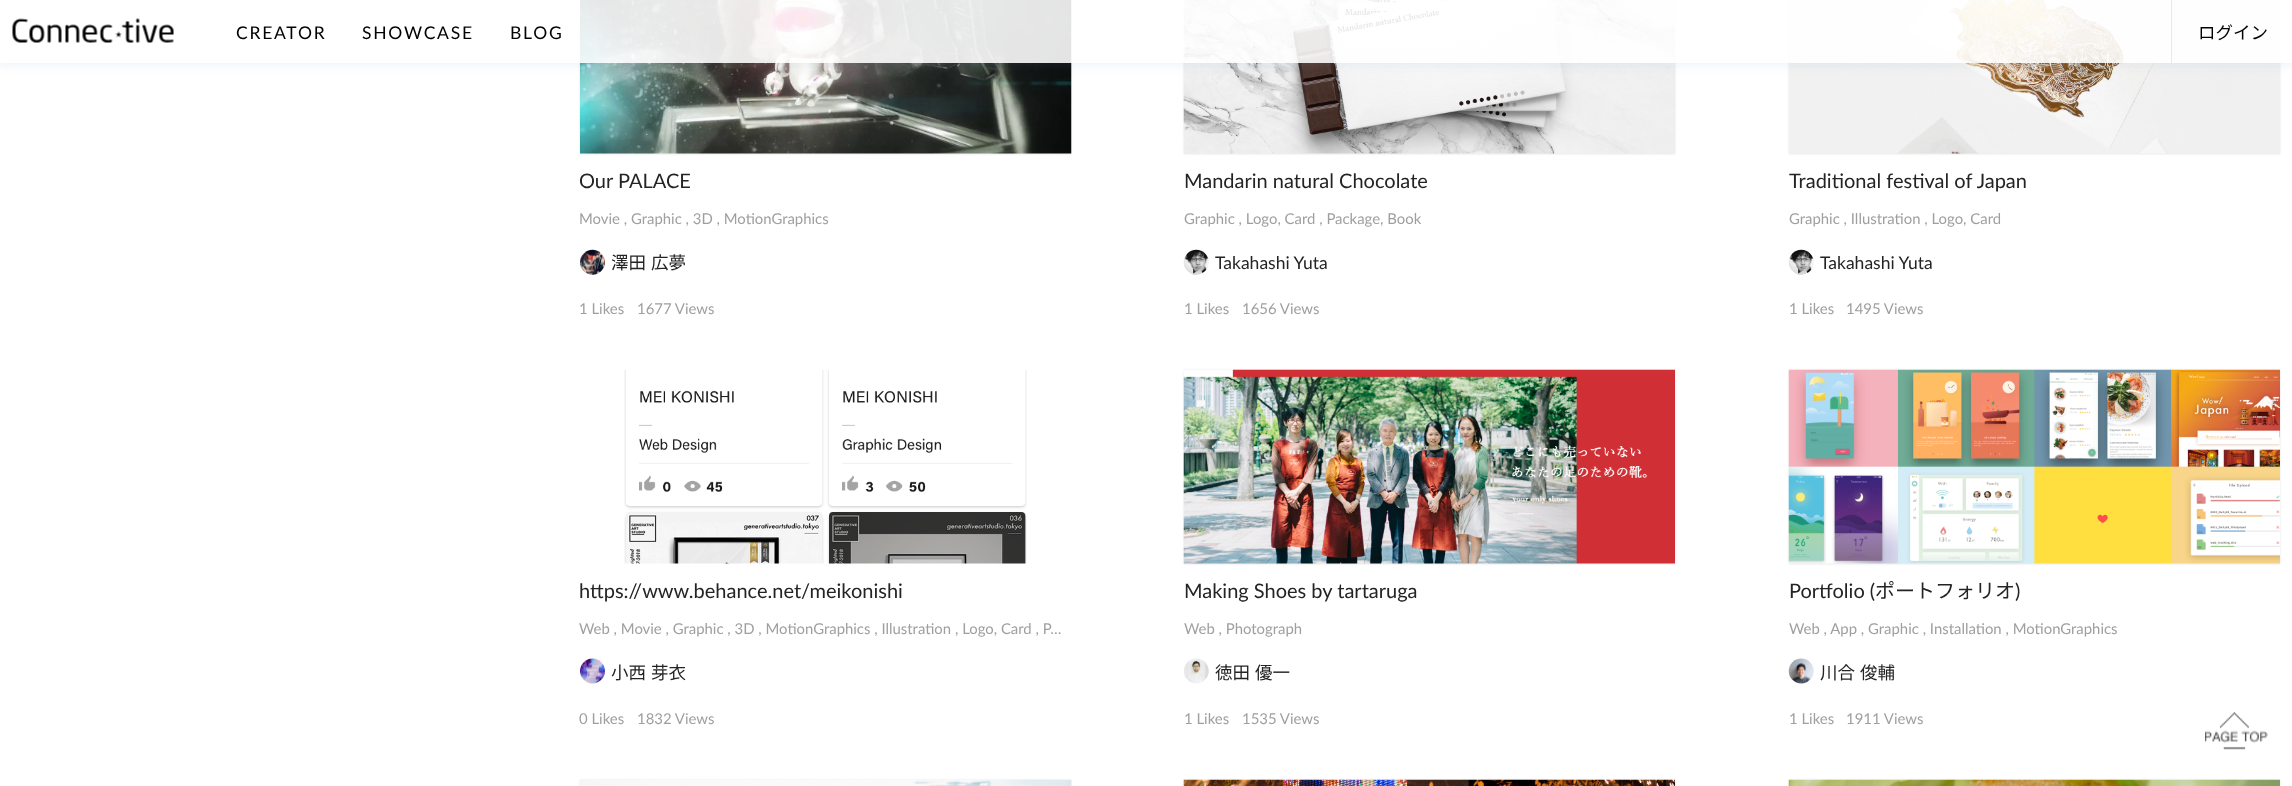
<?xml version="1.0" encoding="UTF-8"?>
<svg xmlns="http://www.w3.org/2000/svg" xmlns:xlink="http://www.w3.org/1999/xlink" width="2292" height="786">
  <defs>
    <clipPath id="clip1"><path d="M 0 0 h 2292 v 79 h -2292 z m 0 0 h 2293 v 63 h -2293 z" clip-rule="evenodd" /></clipPath>
  </defs>
  <rect width="100%" height="100%" fill="#ffffff" />
  <rect x="580" y="-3" width="491" height="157" fill="#000000" fill-opacity="0.1" filter="blur(1px)" />
  <image x="580" y="0" width="492" height="154" xlink:href="image2.png" />
  <rect x="1184" y="-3" width="491" height="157" fill="#000000" fill-opacity="0.1" filter="blur(1px)" />
  <image x="1183" y="0" width="492" height="154" xlink:href="image4.png" />
  <rect x="1789" y="-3" width="491" height="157" fill="#000000" fill-opacity="0.1" filter="blur(1px)" />
  <image x="1789" y="0" width="491" height="154" xlink:href="image6.png" />
  <g clip-path="url(#clip1)">
    <rect x="-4" y="-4" width="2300" height="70" fill="#7187a4" fill-opacity="0.1" filter="blur(4px)" />
  </g>
  <rect width="2292" height="63" fill="#ffffff" fill-opacity="0.89" />
  <image x="12" y="18" width="162" height="25" xlink:href="image1.png" />
  <rect x="2171" width="1" height="63" fill="#e9e9e9" />
  <image x="580" y="249" width="25" height="26" xlink:href="image3.png" />
  <image x="1183" y="249" width="26" height="26" xlink:href="image5.png" />
  <image x="1788" y="249" width="26" height="26" xlink:href="image7.png" />
  <image x="624" y="370" width="403" height="194" xlink:href="image8.png" />
  <image x="580" y="658" width="25" height="26" xlink:href="image9.png" />
  <rect x="1184" y="370" width="491" height="194" fill="#000000" fill-opacity="0.1" filter="blur(1px)" />
  <image x="1183" y="369" width="492" height="195" xlink:href="image10.png" />
  <image x="1184" y="658" width="25" height="26" xlink:href="image11.png" />
  <rect x="1789" y="370" width="491" height="194" fill="#000000" fill-opacity="0.1" filter="blur(1px)" />
  <image x="1788" y="369" width="492" height="195" xlink:href="image12.png" />
  <image x="1788" y="658" width="26" height="26" xlink:href="image13.png" />
  <rect x="580" y="780" width="491" height="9" fill="#000000" fill-opacity="0.1" filter="blur(1px)" />
  <image x="580" y="779" width="492" height="7" xlink:href="image14.png" />
  <rect x="1184" y="780" width="491" height="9" fill="#000000" fill-opacity="0.1" filter="blur(1px)" />
  <image x="1183" y="779" width="492" height="7" xlink:href="image15.png" />
  <rect x="1789" y="780" width="491" height="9" fill="#000000" fill-opacity="0.1" filter="blur(1px)" />
  <image x="1788" y="779" width="492" height="7" xlink:href="image16.png" />
  <image x="2205" y="712" width="63" height="38" xlink:href="image17.png" />
  <text x="236" y="39" style="font-family: Lato; font-size: 17.5px; letter-spacing: 1.75px; fill: #020202">CREATOR</text>
  <text x="362" y="39" style="font-family: Lato; font-size: 17.5px; letter-spacing: 1.75px; fill: #020202">SHOWCASE</text>
  <text x="510" y="39" style="font-family: Lato; font-size: 17.5px; letter-spacing: 1.75px; fill: #020202">BLOG</text>
  <text x="2198" y="39" style="font-family: Noto Sans JP; font-size: 17.5px; fill: #020202">ログイン</text>
  <text x="579" y="188" style="font-family: Lato; font-size: 20px; fill: #242424">Our PALACE</text>
  <text x="579" y="224" style="font-family: Lato; font-size: 14.9px; fill: #9f9f9f">Movie , Graphic , 3D , MotionGraphics</text>
  <text x="611" y="269" word-spacing="1" style="font-family: Noto Sans JP; font-size: 17.5px; fill: #242424">澤田 広夢</text>
  <text x="579" y="314" style="font-family: Lato; font-size: 14.9px; fill: #9f9f9f">1 Likes</text>
  <text x="637" y="314" style="font-family: Lato; font-size: 14.9px; fill: #9f9f9f">1677 Views</text>
  <text x="1184" y="188" style="font-family: Lato; font-size: 20px; fill: #242424">Mandarin natural Chocolate</text>
  <text x="1184" y="224" style="font-family: Lato; font-size: 14.9px; fill: #9f9f9f">Graphic , Logo, Card , Package, Book</text>
  <text x="1215" y="269" style="font-family: Lato; font-size: 17.5px; fill: #242424">Takahashi Yuta</text>
  <text x="1184" y="314" style="font-family: Lato; font-size: 14.9px; fill: #9f9f9f">1 Likes</text>
  <text x="1242" y="314" style="font-family: Lato; font-size: 14.9px; fill: #9f9f9f">1656 Views</text>
  <text x="1789" y="188" style="font-family: Lato; font-size: 20px; fill: #242424">Traditional festival of Japan</text>
  <text x="1789" y="224" style="font-family: Lato; font-size: 14.9px; fill: #9f9f9f">Graphic , Illustration , Logo, Card</text>
  <text x="1820" y="269" style="font-family: Lato; font-size: 17.5px; fill: #242424">Takahashi Yuta</text>
  <text x="1789" y="314" style="font-family: Lato; font-size: 14.9px; fill: #9f9f9f">1 Likes</text>
  <text x="1846" y="314" style="font-family: Lato; font-size: 14.9px; fill: #9f9f9f">1495 Views</text>
  <text x="579" y="598" style="font-family: Lato; font-size: 20px; fill: #242424">https://www.behance.net/meikonishi</text>
  <text x="579" y="634" style="font-family: Lato; font-size: 14.9px; fill: #9f9f9f">Web , Movie , Graphic , 3D , MotionGraphics , Illustration , Logo, Card , P…</text>
  <text x="611" y="679" word-spacing="1" style="font-family: Noto Sans JP; font-size: 17.5px; fill: #242424">小西 芽衣</text>
  <text x="579" y="724" style="font-family: Lato; font-size: 14.9px; fill: #9f9f9f">0 Likes</text>
  <text x="637" y="724" style="font-family: Lato; font-size: 14.9px; fill: #9f9f9f">1832 Views</text>
  <text x="1184" y="598" style="font-family: Lato; font-size: 20px; fill: #242424">Making Shoes by tartaruga</text>
  <text x="1184" y="634" style="font-family: Lato; font-size: 14.9px; fill: #9f9f9f">Web , Photograph</text>
  <text x="1215" y="679" word-spacing="1" style="font-family: Noto Sans JP; font-size: 17.5px; fill: #242424">徳田 優一</text>
  <text x="1184" y="724" style="font-family: Lato; font-size: 14.9px; fill: #9f9f9f">1 Likes</text>
  <text x="1242" y="724" style="font-family: Lato; font-size: 14.9px; fill: #9f9f9f">1535 Views</text>
  <text x="1789" y="598" style="font-family: Lato; font-size: 20px; fill: #242424">Portfolio (</text>
  <text x="1875" y="598" style="font-family: Noto Sans JP; font-size: 20px; fill: #242424">ポートフォリオ</text>
  <text x="2015" y="598" style="font-family: Lato; font-size: 20px; fill: #242424">)</text>
  <text x="1789" y="634" style="font-family: Lato; font-size: 14.9px; fill: #9f9f9f">Web , App , Graphic , Installation , MotionGraphics</text>
  <text x="1820" y="679" word-spacing="1" style="font-family: Noto Sans JP; font-size: 17.5px; fill: #242424">川合 俊輔</text>
  <text x="1789" y="724" style="font-family: Lato; font-size: 14.9px; fill: #9f9f9f">1 Likes</text>
  <text x="1846" y="724" style="font-family: Lato; font-size: 14.9px; fill: #9f9f9f">1911 Views</text>
</svg>
